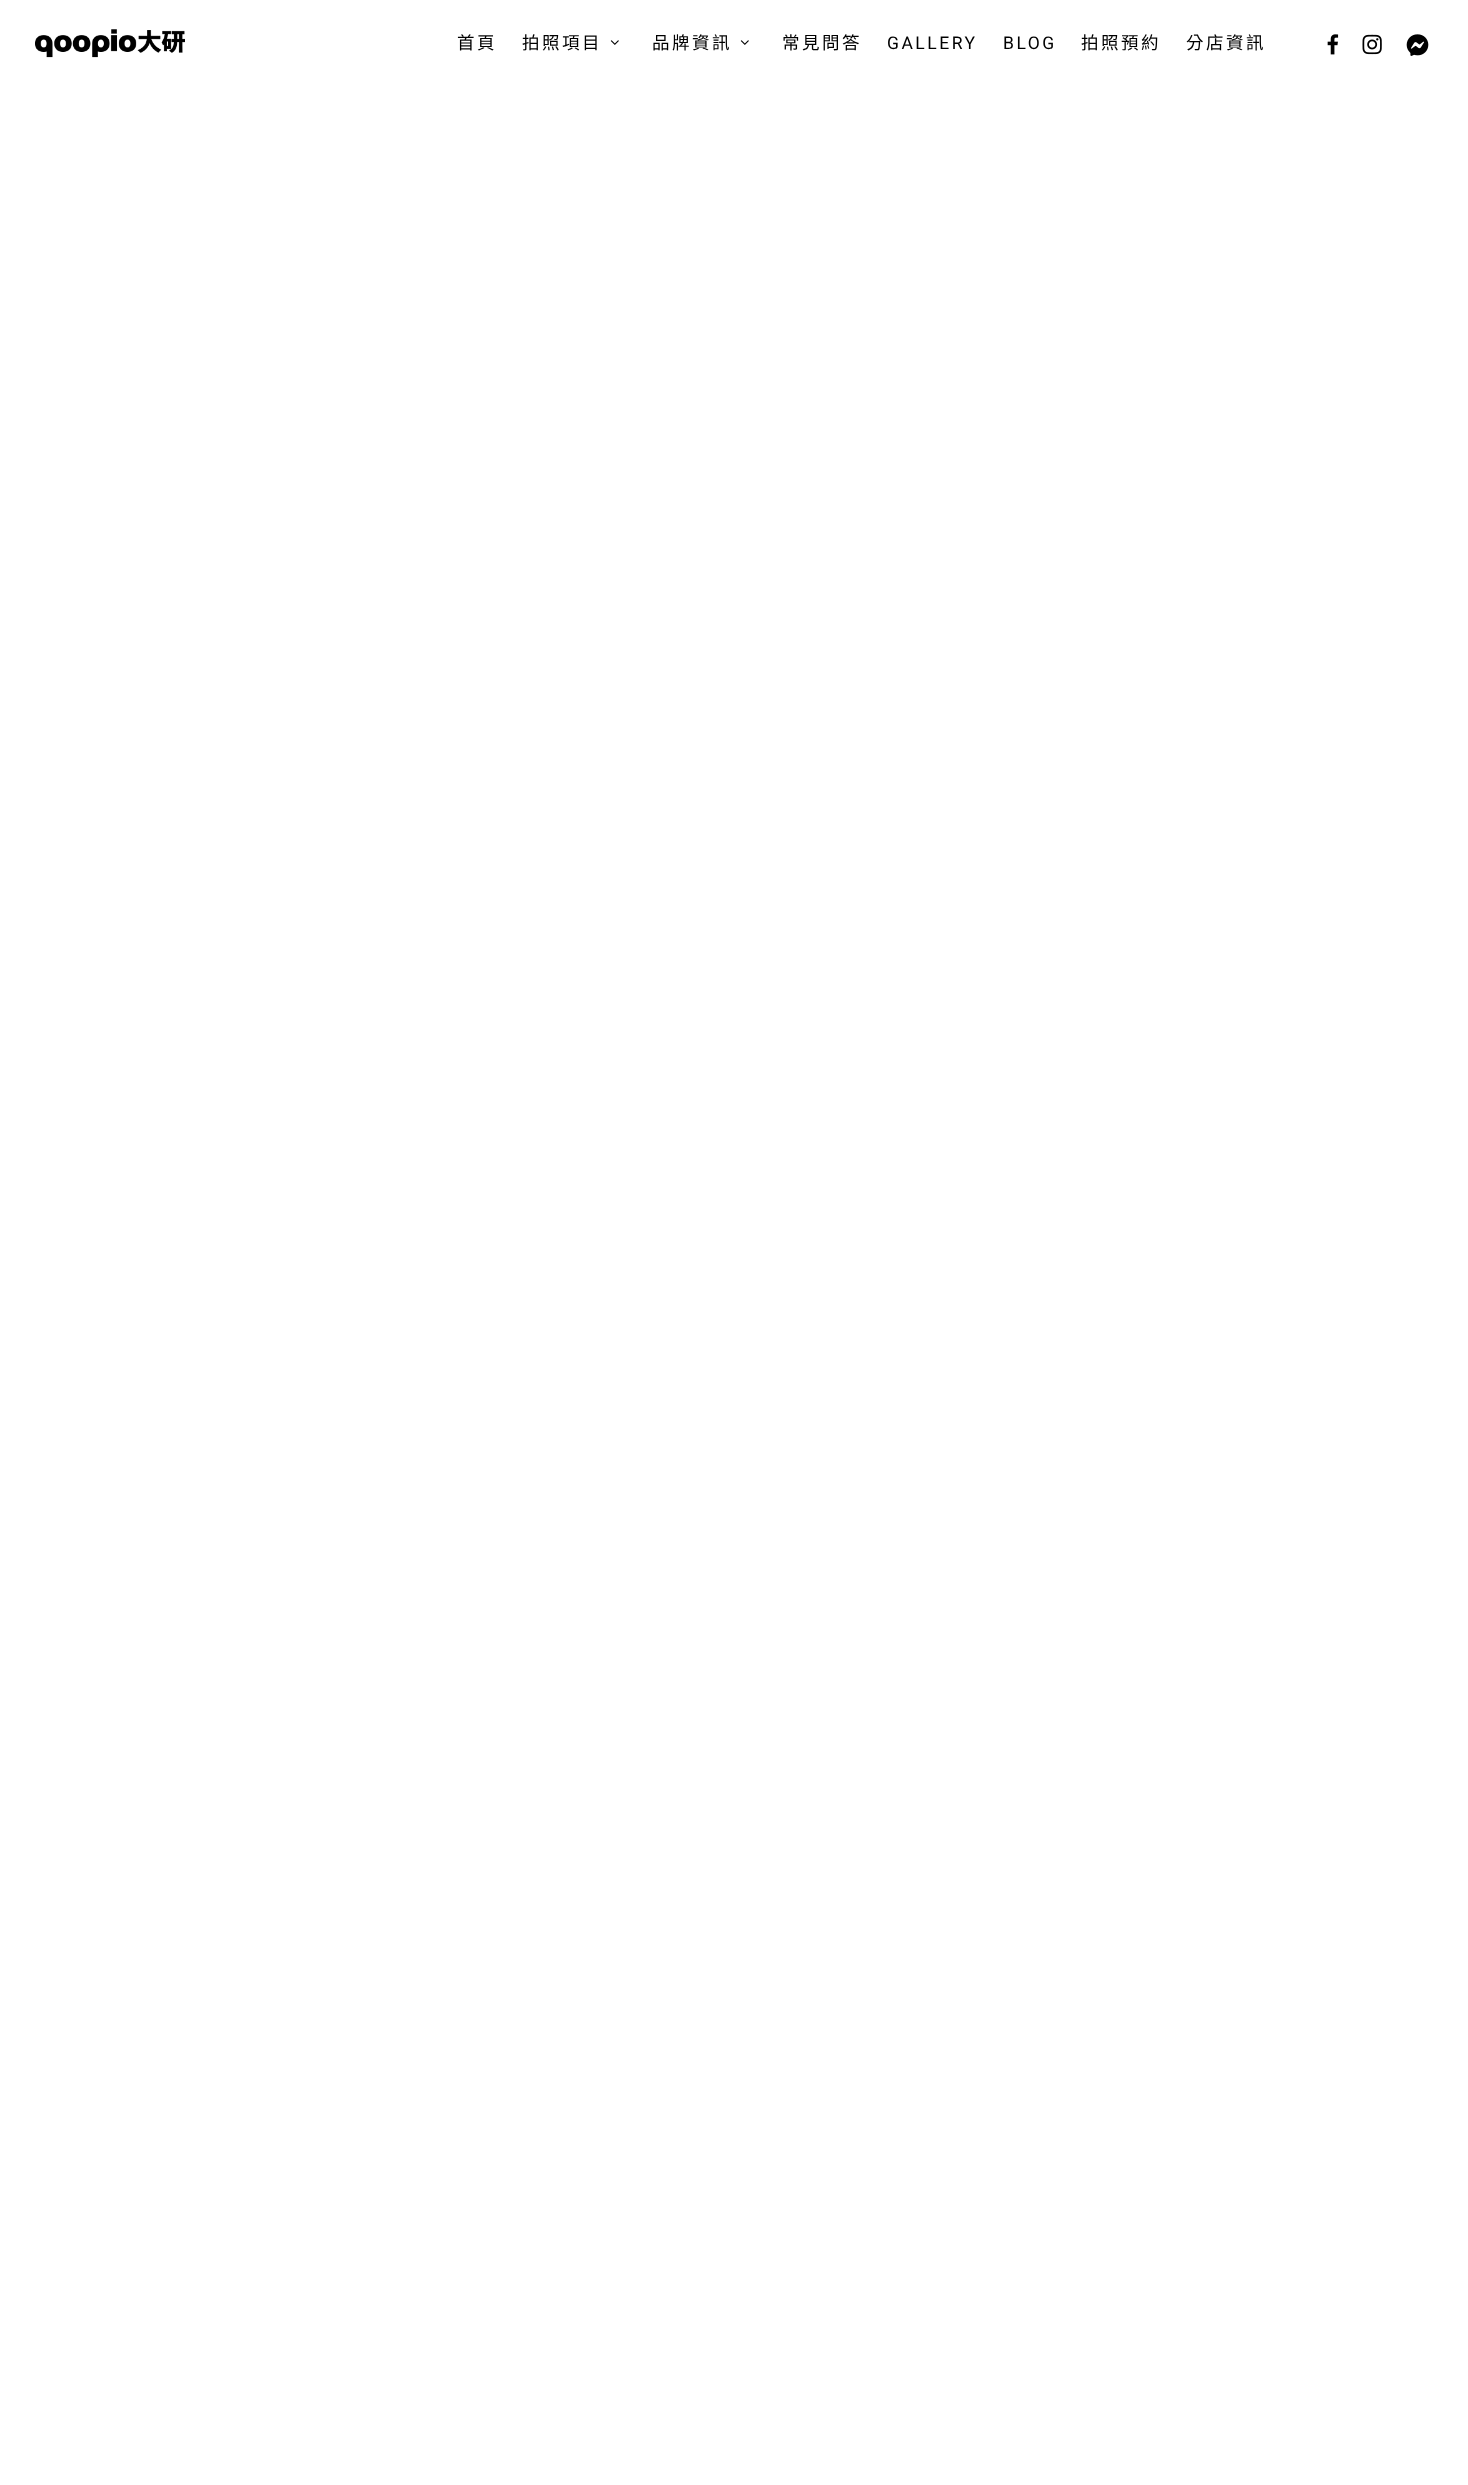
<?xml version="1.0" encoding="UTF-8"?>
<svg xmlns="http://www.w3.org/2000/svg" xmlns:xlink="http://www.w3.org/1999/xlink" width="1468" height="2485">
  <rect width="100%" height="100%" fill="#ffffff" />
  <image x="35" y="29" width="150" height="29" xlink:href="image1.png" />
  <image x="610" y="40" width="9" height="5" xlink:href="image2.png" />
  <image x="740" y="40" width="9" height="5" xlink:href="image2.png" />
  <image x="1327" y="34" width="12" height="21" xlink:href="image3.png" />
  <image x="1362" y="34" width="20" height="21" xlink:href="image4.png" />
  <image x="1406" y="34" width="23" height="22" xlink:href="image5.png" />
  <text x="457" y="49" style="font-family: Noto Sans CJK TC; font-size: 17.5px; letter-spacing: 2.5px; fill: #000000">首頁</text>
  <text x="522" y="49" style="font-family: Noto Sans CJK TC; font-size: 17.5px; letter-spacing: 2.5px; fill: #000000">拍照項目</text>
  <text x="652" y="49" style="font-family: Noto Sans CJK TC; font-size: 17.5px; letter-spacing: 2.5px; fill: #000000">品牌資訊</text>
  <text x="782" y="49" style="font-family: Noto Sans CJK TC; font-size: 17.5px; letter-spacing: 2.5px; fill: #000000">常見問答</text>
  <text x="887" y="49" style="font-family: Roboto; font-size: 17.5px; letter-spacing: 2.5px; fill: #000000">GALLERY</text>
  <text x="1003" y="49" style="font-family: Roboto; font-size: 17.5px; letter-spacing: 2.5px; fill: #000000">BLOG</text>
  <text x="1081" y="49" style="font-family: Noto Sans CJK TC; font-size: 17.5px; letter-spacing: 2.5px; fill: #000000">拍照預約</text>
  <text x="1186" y="49" style="font-family: Noto Sans CJK TC; font-size: 17.5px; letter-spacing: 2.5px; fill: #000000">分店資訊</text>
</svg>
